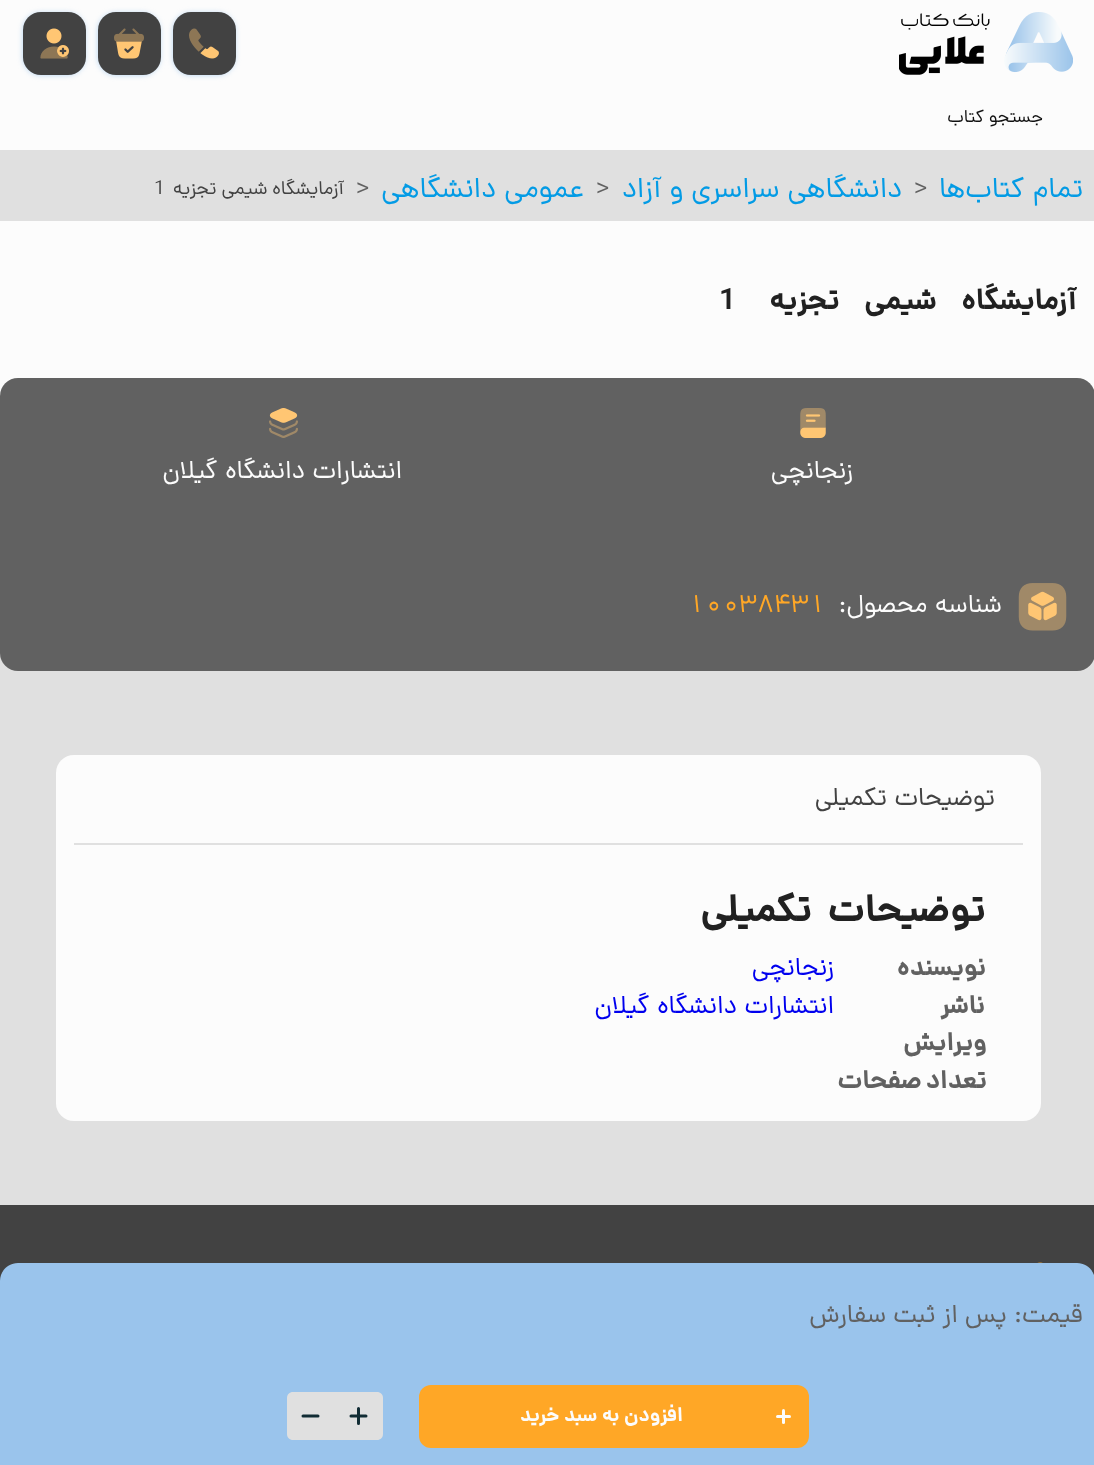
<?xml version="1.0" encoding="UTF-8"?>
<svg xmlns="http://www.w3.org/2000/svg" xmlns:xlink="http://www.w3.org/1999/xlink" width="1094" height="1465">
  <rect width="100%" height="100%" fill="#e0e0e0" />
  <rect width="1094" height="150" fill="#fcfcfc" />
  <image x="899" y="12" width="174" height="63" xlink:href="image1.png" />
  <rect x="174" y="14" width="60" height="60" rx="17" fill="#9ac4ec" filter="blur(3px)" />
  <rect x="173" y="12" width="63" height="63" rx="18" fill="#424242" />
  <image x="189" y="28" width="30" height="31" xlink:href="image2.png" />
  <rect x="99" y="14" width="60" height="60" rx="17" fill="#9ac4ec" filter="blur(3px)" />
  <rect x="98" y="12" width="63" height="63" rx="18" fill="#424242" />
  <image x="114" y="28" width="30" height="31" xlink:href="image3.png" />
  <rect x="24" y="14" width="60" height="60" rx="17" fill="#9ac4ec" filter="blur(3px)" />
  <rect x="23" y="12" width="63" height="63" rx="18" fill="#424242" />
  <image x="40" y="28" width="29" height="31" xlink:href="image4.png" />
  <rect y="221" width="1094" height="175" fill="#fcfcfc" />
  <rect y="378" width="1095" height="293" rx="18" fill="#616161" />
  <image x="800" y="408" width="26" height="30" xlink:href="image5.png" />
  <image x="269" y="408" width="29" height="30" xlink:href="image6.png" />
  <image x="1018" y="583" width="49" height="48" xlink:href="image7.png" />
  <rect y="1205" width="1094" height="76" fill="#424242" />
  <path d="M 18 1263 h 1059 c 10 0 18 8 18 18 v 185 h -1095 v -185 c 0 -10 8 -18 18 -18 z" fill="#9ac4ec" />
  <rect x="419" y="1385" width="390" height="63" rx="12" fill="#ffa726" />
  <rect x="782" y="1409" width="3" height="15" rx="1.5" fill="#fcfcfc" />
  <rect x="776" y="1415" width="15" height="3" rx="1.5" fill="#fcfcfc" />
  <path d="M 335 1392 h 42 c 3.5 0 6 2.5 6 6 v 36 c 0 3.5 -2.5 6 -6 6 h -42 z" fill="#e0e0e0" />
  <path d="M 358.5 1408.5 v 15 m 7.5 -7.5 h -15" fill="none" stroke="#112c34" stroke-width="3" stroke-linecap="round" stroke-linejoin="round" />
  <path d="M 293 1392 h 42 v 48 h -42 c -3.5 0 -6 -2.5 -6 -6 v -36 c 0 -3.5 2.5 -6 6 -6 z" fill="#e0e0e0" />
  <path d="M 318 1416 h -15" fill="none" stroke="#112c34" stroke-width="3" stroke-linecap="round" stroke-linejoin="round" />
  <rect x="56" y="755" width="985" height="366" rx="18" fill="#fcfcfc" />
  <rect x="74" y="843" width="949" height="2" fill="#e0e0e0" />
  <image x="1037" y="1262" width="6" height="1" xlink:href="image8.png" />
  <text x="1043" y="122" style="font-family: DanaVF; font-size: 18px; direction: rtl; fill: #111111">جستجو کتاب</text>
  <text x="1083" y="197" word-spacing="1" style="font-family: DanaVF; font-size: 28.9px; direction: rtl; fill: #039be5">تمام کتاب‌ها</text>
  <text x="914" y="196" style="font-family: DanaVF; font-size: 25.75px; fill: #616161">&gt;</text>
  <text x="902" y="197" word-spacing="0.5" style="font-family: DanaVF; font-size: 28.9px; direction: rtl; fill: #039be5">دانشگاهی سراسری و آزاد</text>
  <text x="596" y="196" style="font-family: DanaVF; font-size: 25.75px; fill: #616161">&gt;</text>
  <text x="584" y="197" word-spacing="1" style="font-family: DanaVF; font-size: 28.9px; direction: rtl; fill: #039be5">عمومی دانشگاهی</text>
  <text x="356" y="196" style="font-family: DanaVF; font-size: 25.75px; fill: #616161">&gt;</text>
  <text x="344" y="194" style="font-family: DanaVF; font-size: 19.25px; direction: rtl; fill: #424242">آزمایشگاه شیمی تجزیه</text>
  <text x="154" y="194" style="font-family: DanaVF; font-size: 19.25px; fill: #424242">1</text>
  <text x="1077" y="309" word-spacing="18" style="font-family: DanaVF; font-size: 29.5px; font-weight: bold; direction: rtl; fill: #212121">آزمایشگاه شیمی تجزیه</text>
  <text x="719" y="309" style="font-family: DanaVF; font-size: 29.5px; font-weight: bold; fill: #212121">1</text>
  <text x="853" y="478" style="font-family: DanaVF; font-size: 25.75px; direction: rtl; fill: #fcfcfc">زنجانچی</text>
  <text x="402" y="478" word-spacing="1" style="font-family: DanaVF; font-size: 25.75px; direction: rtl; fill: #fcfcfc">انتشارات دانشگاه گیلان</text>
  <text x="1002" y="612" word-spacing="1" style="font-family: DanaVF; font-size: 25.75px; direction: rtl; fill: #fcfcfc">شناسه محصول:</text>
  <text x="688" y="612" style="font-family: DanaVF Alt; font-size: 25.75px; fill: #ffa726">10038431</text>
  <text x="1083" y="1322" word-spacing="0.5" style="font-family: DanaVF; font-size: 25.75px; direction: rtl; fill: #616161">قیمت: پس از ثبت‌ سفارش</text>
  <text x="683" y="1421" style="font-family: DanaVF; font-size: 20px; font-weight: bold; direction: rtl; fill: #fcfcfc">افزودن به سبد خرید</text>
  <text x="995" y="805" word-spacing="1" style="font-family: DanaVF; font-size: 25.75px; direction: rtl; fill: #424242">توضیحات تکمیلی</text>
  <text x="986" y="921" word-spacing="7" style="font-family: DanaVF; font-size: 38.5px; font-weight: bold; direction: rtl; fill: #212121">توضیحات تکمیلی</text>
  <text x="986" y="975" style="font-family: DanaVF; font-size: 25.75px; font-weight: bold; direction: rtl; fill: #616161">نویسنده</text>
  <text x="834" y="975" style="font-family: DanaVF; font-size: 25.75px; direction: rtl; fill: #0000ee">زنجانچی</text>
  <text x="985" y="1013" style="font-family: DanaVF; font-size: 25.75px; font-weight: bold; direction: rtl; fill: #616161">ناشر</text>
  <text x="834" y="1013" word-spacing="1" style="font-family: DanaVF; font-size: 25.75px; direction: rtl; fill: #0000ee">انتشارات دانشگاه گیلان</text>
  <text x="987" y="1050" style="font-family: DanaVF; font-size: 25.75px; font-weight: bold; direction: rtl; fill: #616161">ویرایش</text>
  <text x="987" y="1088" word-spacing="-2" style="font-family: DanaVF; font-size: 25.75px; font-weight: bold; direction: rtl; fill: #616161">تعداد صفحات</text>
</svg>
